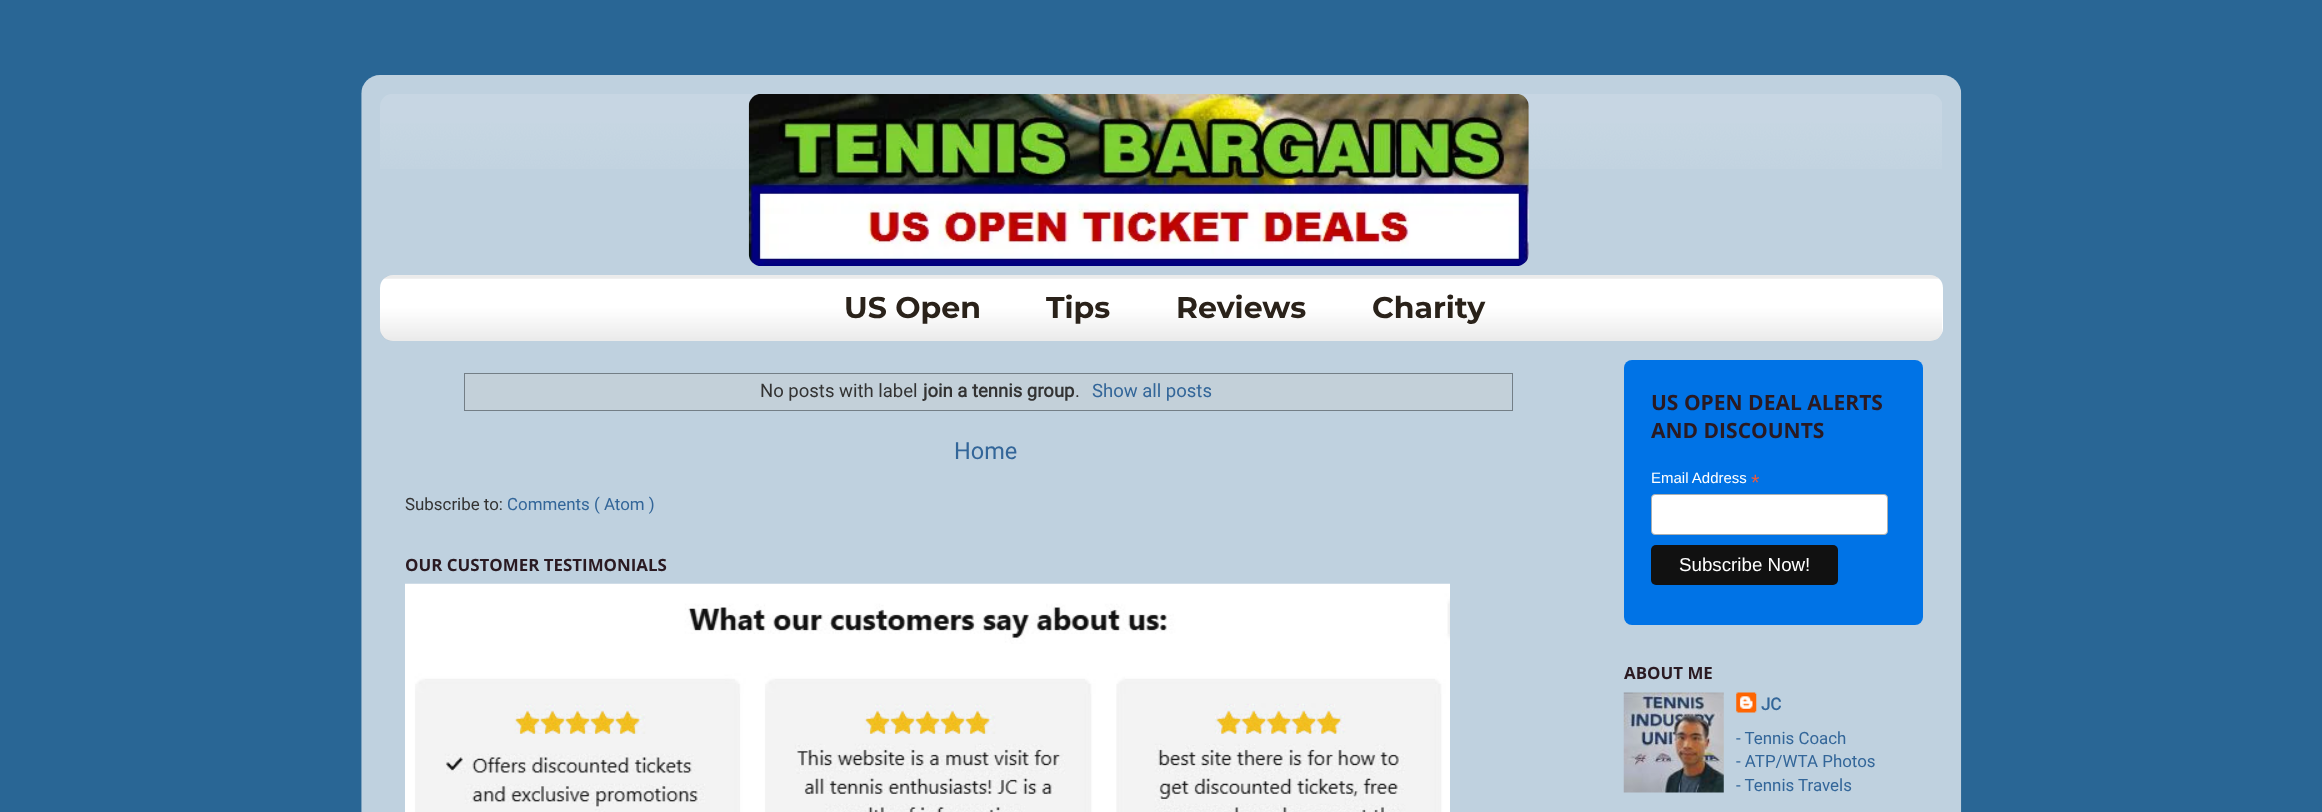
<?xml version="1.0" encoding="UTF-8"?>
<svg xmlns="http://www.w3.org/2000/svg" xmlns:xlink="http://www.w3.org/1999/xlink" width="2322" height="812">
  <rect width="100%" height="100%" fill="#296695" />
  <image x="361" y="75" width="1601" height="737" xlink:href="image1.png" />
  <image x="380" y="94" width="1562" height="75" xlink:href="image2.png" />
  <image x="748" y="94" width="781" height="172" xlink:href="image3.png" />
  <rect x="380" y="275" width="1563" height="66" rx="13" fill="#ffffff" />
  <image x="380" y="275" width="1562" height="66" xlink:href="image4.png" />
  <rect x="464.5" y="373.5" width="1048" height="37" fill="none" stroke="#737e86" />
  <rect x="465" y="374" width="1046" height="36" fill="#c3d0d9" />
  <image x="405" y="583" width="1045" height="229" xlink:href="image5.png" />
  <rect x="1624" y="360" width="299" height="265" rx="8" fill="#0073e6" />
  <rect x="1651.5" y="494.5" width="236" height="40" rx="3.5" fill="#ffffff" stroke="#abb0b2" />
  <rect x="1651" y="545" width="187" height="40" rx="5" fill="#111111" />
  <image x="1623" y="692" width="101" height="101" xlink:href="image6.png" />
  <image x="1736" y="692" width="21" height="21" xlink:href="image7.png" />
  <text x="844" y="318" style="font-family: Montserrat; font-size: 30px; font-weight: 100; fill: #2a221a">US Open</text>
  <text x="1046" y="318" style="font-family: Montserrat; font-size: 30px; font-weight: 100; fill: #2a221a">Tips</text>
  <text x="1176" y="318" style="font-family: Montserrat; font-size: 30px; font-weight: 100; fill: #2a221a">Reviews</text>
  <text x="1372" y="318" style="font-family: Montserrat; font-size: 30px; font-weight: 100; fill: #2a221a">Charity</text>
  <text x="760" y="397" style="font-family: Roboto; font-size: 18.5px; fill: #333333">No posts with label</text>
  <text x="923" y="397" style="font-family: Roboto; font-size: 18.5px; font-weight: bold; fill: #333333">join a tennis group</text>
  <text x="1075" y="397" style="font-family: Roboto; font-size: 18.5px; fill: #333333">.</text>
  <text x="1092" y="397" style="font-family: Roboto; font-size: 18.5px; fill: #336699">Show all posts</text>
  <text x="954" y="459" style="font-family: Roboto; font-size: 23.5px; fill: #336699">Home</text>
  <text x="405" y="510" style="font-family: Roboto; font-size: 16.9px; fill: #333333">Subscribe to:</text>
  <text x="507" y="510" style="font-family: Roboto; font-size: 16.9px; fill: #336699">Comments ( Atom )</text>
  <text x="405" y="571" style="font-family: Open Sans; font-size: 16.9px; font-weight: bold; fill: #2a1a22">OUR CUSTOMER TESTIMONIALS</text>
  <text x="1651" y="410" style="font-family: Open Sans; font-size: 21px; font-weight: bold; fill: #2a1a22">US OPEN DEAL ALERTS</text>
  <text x="1651" y="438" style="font-family: Open Sans; font-size: 21px; font-weight: bold; fill: #2a1a22">AND DISCOUNTS</text>
  <text x="1651" y="483" style="font-family: Liberation Sans; font-size: 15px; fill: #ffffff">Email Address</text>
  <text x="1751" y="490" style="font-family: Liberation Sans; font-size: 22px; fill: #e85c41">*</text>
  <text x="1679" y="571" style="font-family: Liberation Sans; font-size: 18.75px; fill: #ffffff">Subscribe Now!</text>
  <text x="1624" y="679" style="font-family: Open Sans; font-size: 16.9px; font-weight: bold; fill: #2a1a22">ABOUT ME</text>
  <text x="1761" y="710" style="font-family: Roboto; font-size: 16.9px; font-weight: bold; fill: #336699">JC</text>
  <text x="1736" y="744" style="font-family: Roboto; font-size: 16.9px; fill: #336699">- Tennis Coach</text>
  <text x="1736" y="767" style="font-family: Roboto; font-size: 16.9px; fill: #336699">- ATP/WTA Photos</text>
  <text x="1736" y="791" style="font-family: Roboto; font-size: 16.9px; fill: #336699">- Tennis Travels</text>
</svg>
